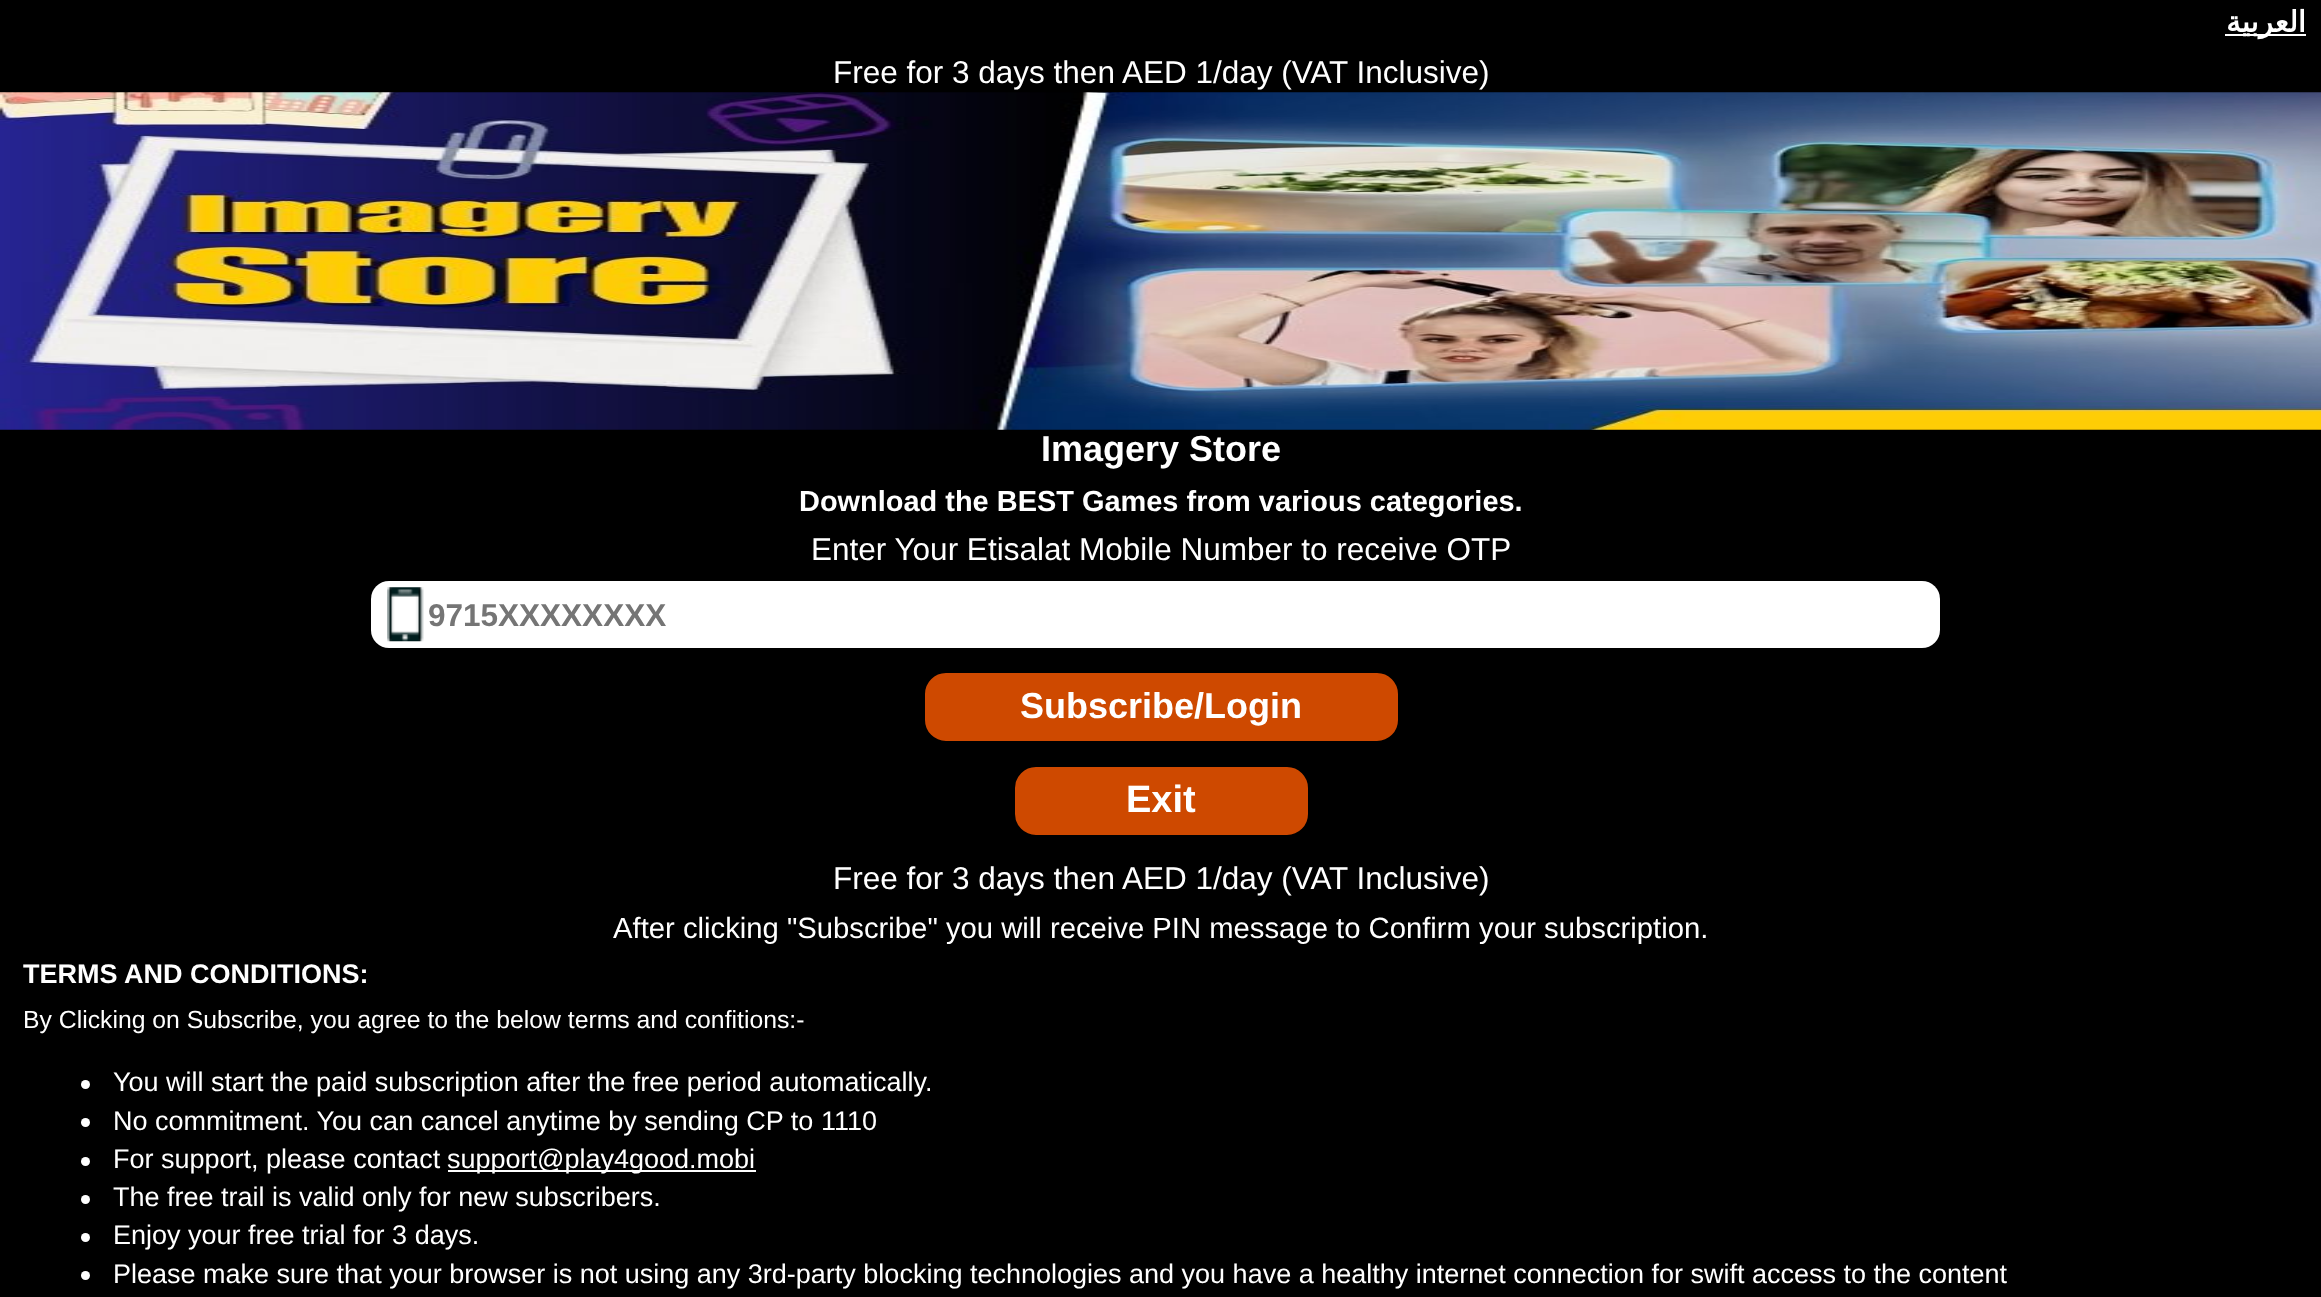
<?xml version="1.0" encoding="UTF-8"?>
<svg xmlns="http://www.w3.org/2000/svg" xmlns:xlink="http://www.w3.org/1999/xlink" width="2321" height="1297">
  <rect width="100%" height="100%" fill="#000000" />
  <rect x="2225" y="34" width="81" height="2" fill="#ffffff" />
  <image x="0" y="92" width="2321" height="338" xlink:href="image1.png" />
  <rect x="371" y="581" width="1569" height="67" rx="18" fill="#ffffff" />
  <image x="387" y="587" width="37" height="55" xlink:href="image2.png" />
  <rect x="924" y="672" width="475" height="70" rx="22" fill="#ce4900" stroke="#000000" stroke-width="2" />
  <rect x="1014" y="766" width="295" height="70" rx="22" fill="#ce4900" stroke="#000000" stroke-width="2" />
  <circle cx="85.5" cy="1084.5" r="4.5" fill="#ffffff" />
  <circle cx="85.5" cy="1122.5" r="4.5" fill="#ffffff" />
  <circle cx="85.5" cy="1161.5" r="4.5" fill="#ffffff" />
  <rect x="448" y="1170" width="308" height="2" fill="#ffffff" />
  <circle cx="85.5" cy="1199.5" r="4.5" fill="#ffffff" />
  <circle cx="85.5" cy="1237.5" r="4.5" fill="#ffffff" />
  <circle cx="85.5" cy="1275.5" r="4.5" fill="#ffffff" />
  <text x="2306" y="32" style="font-family: DejaVu Sans; font-size: 29.25px; font-weight: bold; direction: rtl; fill: #ffffff">العربية</text>
  <text x="833" y="83" style="font-family: Liberation Sans; font-size: 31.5px; fill: #ffffff">Free for 3 days then AED 1/day (VAT Inclusive)</text>
  <text x="1041" y="461" style="font-family: Liberation Sans; font-size: 36px; font-weight: bold; fill: #ffffff">Imagery Store</text>
  <text x="799" y="511" style="font-family: Liberation Sans; font-size: 28.95px; font-weight: bold; fill: #ffffff">Download the BEST Games from various categories.</text>
  <text x="811" y="560" style="font-family: Liberation Sans; font-size: 31.5px; fill: #ffffff">Enter Your Etisalat Mobile Number to receive OTP</text>
  <text x="428" y="626" style="font-family: Liberation Sans; font-size: 31.5px; font-weight: bold; fill: #757575">9715XXXXXXXX</text>
  <text x="1020" y="718" style="font-family: Liberation Sans; font-size: 36px; font-weight: bold; fill: #ffffff">Subscribe/Login</text>
  <text x="1126" y="812" style="font-family: Liberation Sans; font-size: 38px; font-weight: bold; fill: #ffffff">Exit</text>
  <text x="833" y="889" style="font-family: Liberation Sans; font-size: 31.5px; fill: #ffffff">Free for 3 days then AED 1/day (VAT Inclusive)</text>
  <text x="613" y="938" style="font-family: Liberation Sans; font-size: 29.25px; fill: #ffffff">After clicking "Subscribe" you will receive PIN message to Confirm your subscription.</text>
  <text x="23" y="983" style="font-family: Liberation Sans; font-size: 27px; font-weight: bold; fill: #ffffff">TERMS AND CONDITIONS:</text>
  <text x="23" y="1028" style="font-family: Liberation Sans; font-size: 24.75px; fill: #ffffff">By Clicking on Subscribe, you agree to the below terms and confitions:-</text>
  <text x="113" y="1091" style="font-family: Liberation Sans; font-size: 27px; fill: #ffffff">You will start the paid subscription after the free period automatically.</text>
  <text x="113" y="1130" style="font-family: Liberation Sans; font-size: 27px; fill: #ffffff">No commitment. You can cancel anytime by sending CP to 1110</text>
  <text x="113" y="1168" style="font-family: Liberation Sans; font-size: 27px; fill: #ffffff">For support, please contact</text>
  <text x="447" y="1168" style="font-family: Liberation Sans; font-size: 27px; fill: #ffffff">support@play4good.mobi</text>
  <text x="113" y="1206" style="font-family: Liberation Sans; font-size: 27px; fill: #ffffff">The free trail is valid only for new subscribers.</text>
  <text x="113" y="1244" style="font-family: Liberation Sans; font-size: 27px; fill: #ffffff">Enjoy your free trial for 3 days.</text>
  <text x="113" y="1283" style="font-family: Liberation Sans; font-size: 27px; fill: #ffffff">Please make sure that your browser is not using any 3rd-party blocking technologies and you have a healthy internet connection for swift access to the content</text>
</svg>
